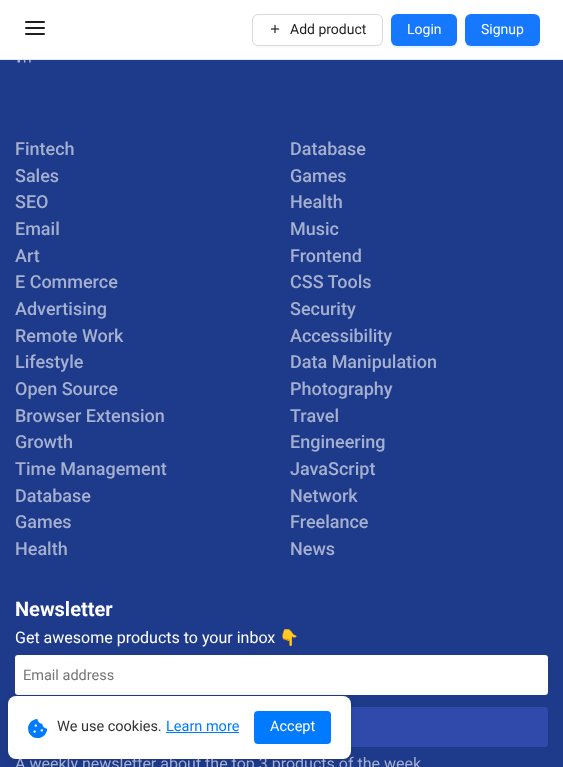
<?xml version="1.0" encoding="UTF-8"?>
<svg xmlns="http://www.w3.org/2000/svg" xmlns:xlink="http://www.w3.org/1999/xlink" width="563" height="767">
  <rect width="100%" height="100%" fill="#1e3a8a" />
  <rect width="563" height="59" fill="#ffffff" />
  <rect y="59" width="563" height="1" fill="#e5e7eb" />
  <path d="M 26 28 h 18 m -18 -6 h 18 m -18 12 h 18" fill="none" stroke="#1f1f1f" stroke-width="2" stroke-linecap="round" stroke-linejoin="round" />
  <path d="M 252 40 v 2 c 0 3 3 6 6 6 h 119 c 3 0 6 -3 6 -6 v -2 c 0 3 -3 6 -6 6 h -119 c -3 0 -6 -3 -6 -6 z" fill="#fafafa" />
  <rect x="252.5" y="14.5" width="130" height="31" rx="5.5" fill="none" stroke="#d9d9d9" />
  <image x="270" y="24" width="10" height="10" xlink:href="image1.png" />
  <path d="M 391 40 c 0 10 7 8 15 8 h 36 c 8 0 15 2 15 -8 c 0 3 -3 6 -6 6 h -54 c -3 0 -6 -3 -6 -6 z" fill="#e6f4ff" />
  <rect x="391" y="14" width="66" height="32" rx="6" fill="#1677ff" />
  <path d="M 465 40 c 0 10 8 8 17 8 h 42 c 8 0 16 2 16 -8 c 0 3 -3 6 -6 6 h -63 c -3 0 -6 -3 -6 -6 z" fill="#e6f4ff" />
  <rect x="465" y="14" width="75" height="32" rx="6" fill="#1677ff" />
  <image x="17" y="60" width="14" height="3" xlink:href="image2.png" />
  <rect x="15" y="655" width="533" height="40" rx="3" fill="#ffffff" />
  <rect x="15" y="707" width="533" height="40" rx="3" fill="#304aab" />
  <rect x="8" y="698" width="343" height="63" rx="8" fill="#000000" fill-opacity="0.1" filter="blur(5px)" />
  <text x="290" y="34" style="font-family: Roboto; font-size: 14px; fill: #1f1f1f">Add product</text>
  <text x="407" y="34" style="font-family: Roboto; font-size: 14px; fill: #ffffff">Login</text>
  <text x="481" y="34" style="font-family: Roboto; font-size: 14px; fill: #ffffff">Signup</text>
  <text x="15" y="155" style="font-family: Roboto; font-size: 18px; font-weight: 500; fill: #a5b0d0">Fintech</text>
  <text x="15" y="182" style="font-family: Roboto; font-size: 18px; font-weight: 500; fill: #a5b0d0">Sales</text>
  <text x="15" y="208" style="font-family: Roboto; font-size: 18px; font-weight: 500; fill: #a5b0d0">SEO</text>
  <text x="15" y="235" style="font-family: Roboto; font-size: 18px; font-weight: 500; fill: #a5b0d0">Email</text>
  <text x="15" y="262" style="font-family: Roboto; font-size: 18px; font-weight: 500; fill: #a5b0d0">Art</text>
  <text x="15" y="288" style="font-family: Roboto; font-size: 18px; font-weight: 500; fill: #a5b0d0">E Commerce</text>
  <text x="15" y="315" style="font-family: Roboto; font-size: 18px; font-weight: 500; fill: #a5b0d0">Advertising</text>
  <text x="15" y="342" style="font-family: Roboto; font-size: 18px; font-weight: 500; fill: #a5b0d0">Remote Work</text>
  <text x="15" y="368" style="font-family: Roboto; font-size: 18px; font-weight: 500; fill: #a5b0d0">Lifestyle</text>
  <text x="15" y="395" style="font-family: Roboto; font-size: 18px; font-weight: 500; fill: #a5b0d0">Open Source</text>
  <text x="15" y="422" style="font-family: Roboto; font-size: 18px; font-weight: 500; fill: #a5b0d0">Browser Extension</text>
  <text x="15" y="448" style="font-family: Roboto; font-size: 18px; font-weight: 500; fill: #a5b0d0">Growth</text>
  <text x="15" y="475" style="font-family: Roboto; font-size: 18px; font-weight: 500; fill: #a5b0d0">Time Management</text>
  <text x="15" y="502" style="font-family: Roboto; font-size: 18px; font-weight: 500; fill: #a5b0d0">Database</text>
  <text x="15" y="528" style="font-family: Roboto; font-size: 18px; font-weight: 500; fill: #a5b0d0">Games</text>
  <text x="15" y="555" style="font-family: Roboto; font-size: 18px; font-weight: 500; fill: #a5b0d0">Health</text>
  <text x="290" y="155" style="font-family: Roboto; font-size: 18px; font-weight: 500; fill: #a5b0d0">Database</text>
  <text x="290" y="182" style="font-family: Roboto; font-size: 18px; font-weight: 500; fill: #a5b0d0">Games</text>
  <text x="290" y="208" style="font-family: Roboto; font-size: 18px; font-weight: 500; fill: #a5b0d0">Health</text>
  <text x="290" y="235" style="font-family: Roboto; font-size: 18px; font-weight: 500; fill: #a5b0d0">Music</text>
  <text x="290" y="262" style="font-family: Roboto; font-size: 18px; font-weight: 500; fill: #a5b0d0">Frontend</text>
  <text x="290" y="288" style="font-family: Roboto; font-size: 18px; font-weight: 500; fill: #a5b0d0">CSS Tools</text>
  <text x="290" y="315" style="font-family: Roboto; font-size: 18px; font-weight: 500; fill: #a5b0d0">Security</text>
  <text x="290" y="342" style="font-family: Roboto; font-size: 18px; font-weight: 500; fill: #a5b0d0">Accessibility</text>
  <text x="290" y="368" style="font-family: Roboto; font-size: 18px; font-weight: 500; fill: #a5b0d0">Data Manipulation</text>
  <text x="290" y="395" style="font-family: Roboto; font-size: 18px; font-weight: 500; fill: #a5b0d0">Photography</text>
  <text x="290" y="422" style="font-family: Roboto; font-size: 18px; font-weight: 500; fill: #a5b0d0">Travel</text>
  <text x="290" y="448" style="font-family: Roboto; font-size: 18px; font-weight: 500; fill: #a5b0d0">Engineering</text>
  <text x="290" y="475" style="font-family: Roboto; font-size: 18px; font-weight: 500; fill: #a5b0d0">JavaScript</text>
  <text x="290" y="502" style="font-family: Roboto; font-size: 18px; font-weight: 500; fill: #a5b0d0">Network</text>
  <text x="290" y="528" style="font-family: Roboto; font-size: 18px; font-weight: 500; fill: #a5b0d0">Freelance</text>
  <text x="290" y="555" style="font-family: Roboto; font-size: 18px; font-weight: 500; fill: #a5b0d0">News</text>
  <text x="15" y="616" style="font-family: Roboto; font-size: 20px; font-weight: bold; fill: #ffffff">Newsletter</text>
  <text x="15" y="643" style="font-family: Roboto; font-size: 16px; fill: #ffffff">Get awesome products to your inbox</text>
  <text x="279" y="643" style="font-family: Noto Color Emoji; font-size: 16px; fill: #ffffff">👇</text>
  <text x="23" y="680" style="font-family: Roboto; font-size: 14.5px; fill: #757575">Email address</text>
  <text x="15" y="769" style="font-family: Roboto; font-size: 16px; fill: #a5b0d0">A weekly newsletter about the top 3 products of the week</text>
  <rect x="8" y="696" width="343" height="63" rx="8" fill="#ffffff" />
  <image x="28" y="719" width="19" height="19" xlink:href="image3.png" />
  <text x="57" y="731" style="font-family: Roboto; font-size: 14.5px; fill: #333333">We use cookies.</text>
  <text x="166" y="731" style="font-family: Roboto; font-size: 14.5px; fill: #007bff">Learn more</text>
  <rect x="166" y="732" width="73" height="1" fill="#007bff" />
  <rect x="254" y="711" width="77" height="33" rx="4" fill="#007bff" />
  <text x="270" y="731" style="font-family: Roboto; font-size: 14.5px; fill: #ffffff">Accept</text>
</svg>
